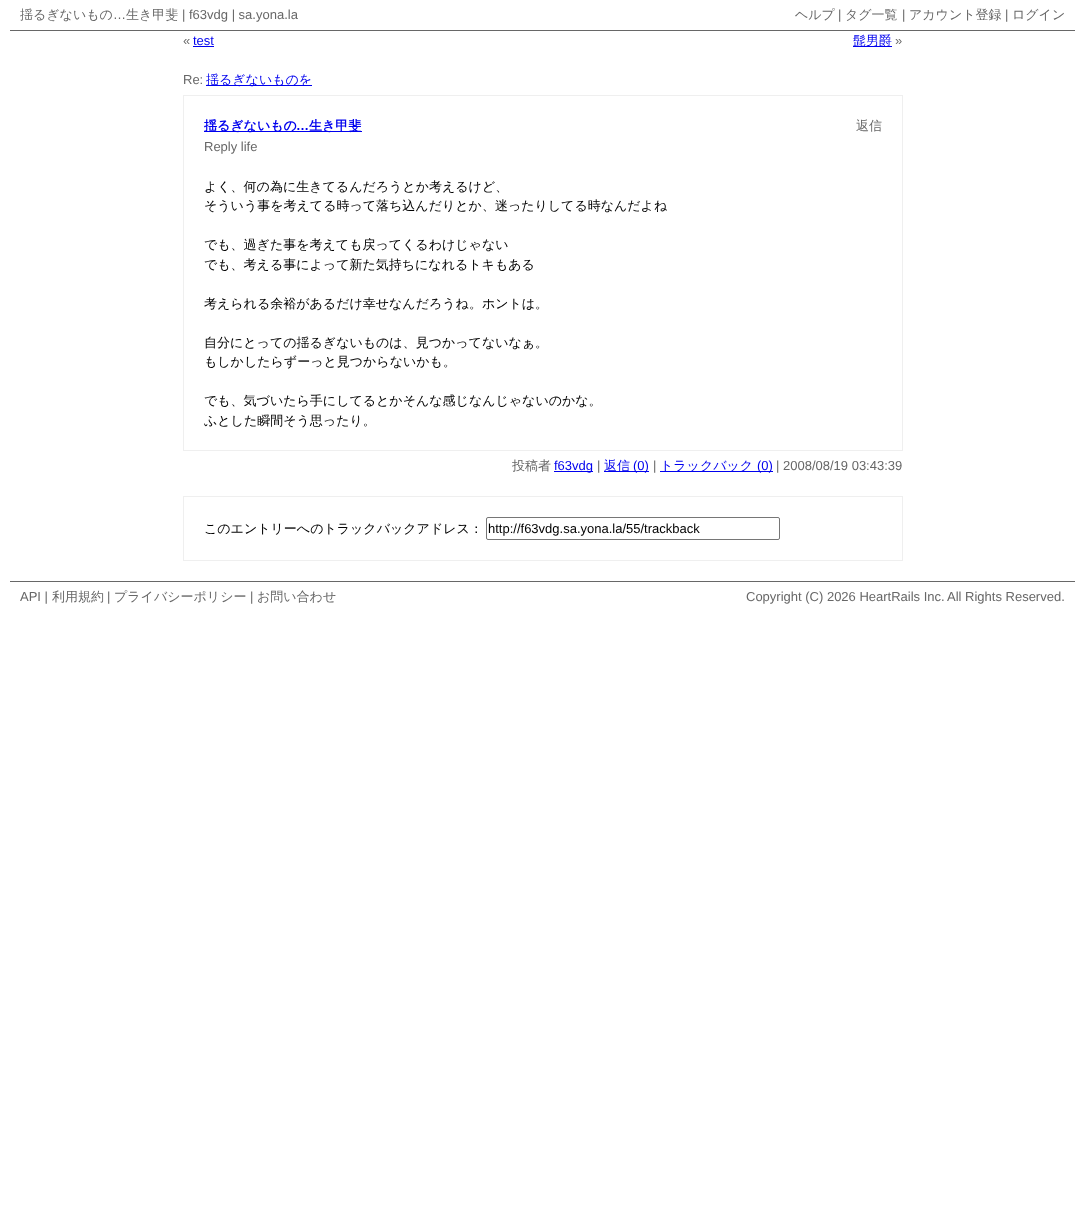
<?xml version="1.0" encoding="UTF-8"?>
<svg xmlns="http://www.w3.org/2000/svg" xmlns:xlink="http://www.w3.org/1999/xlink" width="1085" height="1208">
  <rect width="100%" height="100%" fill="#ffffff" />
  <rect x="10" y="30" width="1065" height="1" fill="#676767" />
  <rect x="193" y="46" width="21" height="1" fill="#0000ee" />
  <rect x="853" y="46" width="39" height="1" fill="#0000ee" />
  <rect x="206" y="85" width="106" height="1" fill="#0000ee" />
  <rect x="183.5" y="95.5" width="719" height="355" fill="none" stroke="#efefef" />
  <rect x="204" y="131" width="158" height="1" fill="#0000ee" />
  <rect x="554" y="471" width="39" height="1" fill="#0000ee" />
  <rect x="604" y="471" width="45" height="1" fill="#0000ee" />
  <rect x="660" y="471" width="113" height="1" fill="#0000ee" />
  <rect x="183.5" y="496.5" width="719" height="64" fill="none" stroke="#efefef" />
  <rect x="486.5" y="517.5" width="293" height="22" rx="1.5" fill="none" stroke="#767676" />
  <rect x="10" y="581" width="1065" height="1" fill="#676767" />
  <text x="20" y="19" style="font-family: WenQuanYi Zen Hei; font-size: 13px; font-weight: 500; fill: #676767">揺るぎないもの</text>
  <text x="113" y="19" style="font-family: Liberation Sans; font-size: 13px; fill: #676767">…</text>
  <text x="126" y="19" style="font-family: WenQuanYi Zen Hei; font-size: 13px; font-weight: 500; fill: #676767">生き甲斐</text>
  <text x="182" y="19" style="font-family: Liberation Sans; font-size: 13px; fill: #676767">| f63vdg | sa.yona.la</text>
  <text x="795" y="19" style="font-family: WenQuanYi Zen Hei; font-size: 13px; font-weight: 500; fill: #676767">ヘルプ</text>
  <text x="838" y="19" style="font-family: Liberation Sans; font-size: 13px; fill: #676767">|</text>
  <text x="845" y="19" style="font-family: WenQuanYi Zen Hei; font-size: 13px; font-weight: 500; fill: #676767">タグ一覧</text>
  <text x="902" y="19" style="font-family: Liberation Sans; font-size: 13px; fill: #676767">|</text>
  <text x="909" y="19" style="font-family: WenQuanYi Zen Hei; font-size: 13px; font-weight: 500; fill: #676767">アカウント登録</text>
  <text x="1005" y="19" style="font-family: Liberation Sans; font-size: 13px; fill: #676767">|</text>
  <text x="1012" y="19" style="font-family: WenQuanYi Zen Hei; font-size: 13px; font-weight: 500; fill: #676767">ログイン</text>
  <text x="183" y="45" style="font-family: Liberation Sans; font-size: 13px; fill: #676767">«</text>
  <text x="193" y="45" style="font-family: Liberation Sans; font-size: 13px; fill: #0000ee">test</text>
  <text x="853" y="45" style="font-family: WenQuanYi Zen Hei; font-size: 13px; font-weight: 500; fill: #0000ee">髭男爵</text>
  <text x="895" y="45" style="font-family: Liberation Sans; font-size: 13px; fill: #676767">»</text>
  <text x="183" y="84" style="font-family: Liberation Sans; font-size: 13px; fill: #676767">Re:</text>
  <text x="206" y="84" style="font-family: WenQuanYi Zen Hei; font-size: 13px; font-weight: 500; fill: #0000ee">揺るぎないものを</text>
  <text x="204" y="130" style="font-family: WenQuanYi Zen Hei; font-size: 13px; font-weight: bold; fill: #0000ee">揺るぎないもの</text>
  <text x="296" y="130" style="font-family: Liberation Sans; font-size: 13px; font-weight: bold; fill: #0000ee">…</text>
  <text x="309" y="130" style="font-family: WenQuanYi Zen Hei; font-size: 13px; font-weight: bold; fill: #0000ee">生き甲斐</text>
  <text x="856" y="130" style="font-family: WenQuanYi Zen Hei; font-size: 13px; font-weight: 500; fill: #676767">返信</text>
  <text x="204" y="151" style="font-family: Liberation Sans; font-size: 13px; fill: #676767">Reply life</text>
  <text x="204" y="191" style="font-family: WenQuanYi Zen Hei; font-size: 13px; font-weight: 500; fill: #000000">よく、何の為に生きてるんだろうとか考えるけど、</text>
  <text x="204" y="210" style="font-family: WenQuanYi Zen Hei; font-size: 13px; font-weight: 500; fill: #000000">そういう事を考えてる時って落ち込んだりとか、迷ったりしてる時なんだよね</text>
  <text x="204" y="249" style="font-family: WenQuanYi Zen Hei; font-size: 13px; font-weight: 500; fill: #000000">でも、過ぎた事を考えても戻ってくるわけじゃない</text>
  <text x="204" y="269" style="font-family: WenQuanYi Zen Hei; font-size: 13px; font-weight: 500; fill: #000000">でも、考える事によって新た気持ちになれるトキもある</text>
  <text x="204" y="308" style="font-family: WenQuanYi Zen Hei; font-size: 13px; font-weight: 500; fill: #000000">考えられる余裕があるだけ幸せなんだろうね。ホントは。</text>
  <text x="204" y="347" style="font-family: WenQuanYi Zen Hei; font-size: 13px; font-weight: 500; fill: #000000">自分にとっての揺るぎないものは、見つかってないなぁ。</text>
  <text x="204" y="366" style="font-family: WenQuanYi Zen Hei; font-size: 13px; font-weight: 500; fill: #000000">もしかしたらずーっと見つからないかも。</text>
  <text x="204" y="405" style="font-family: WenQuanYi Zen Hei; font-size: 13px; font-weight: 500; fill: #000000">でも、気づいたら手にしてるとかそんな感じなんじゃないのかな。</text>
  <text x="204" y="425" style="font-family: WenQuanYi Zen Hei; font-size: 13px; font-weight: 500; fill: #000000">ふとした瞬間そう思ったり。</text>
  <text x="512" y="470" style="font-family: WenQuanYi Zen Hei; font-size: 13px; font-weight: 500; fill: #676767">投稿者</text>
  <text x="554" y="470" style="font-family: Liberation Sans; font-size: 13px; fill: #0000ee">f63vdg</text>
  <text x="597" y="470" style="font-family: Liberation Sans; font-size: 13px; fill: #676767">|</text>
  <text x="604" y="470" style="font-family: WenQuanYi Zen Hei; font-size: 13px; font-weight: 500; fill: #0000ee">返信</text>
  <text x="633" y="470" style="font-family: Liberation Sans; font-size: 13px; fill: #0000ee">(0)</text>
  <text x="653" y="470" style="font-family: Liberation Sans; font-size: 13px; fill: #676767">|</text>
  <text x="660" y="470" style="font-family: WenQuanYi Zen Hei; font-size: 13px; font-weight: 500; fill: #0000ee">トラックバック</text>
  <text x="757" y="470" style="font-family: Liberation Sans; font-size: 13px; fill: #0000ee">(0)</text>
  <text x="776" y="470" style="font-family: Liberation Sans; font-size: 13px; fill: #676767">| 2008/08/19 03:43:39</text>
  <text x="204" y="533" style="font-family: WenQuanYi Zen Hei; font-size: 13px; font-weight: 500; fill: #000000">このエントリーへのトラックバックアドレス：</text>
  <text x="488" y="533" style="font-family: Liberation Sans; font-size: 13px; fill: #000000">http://f63vdg.sa.yona.la/55/trackback</text>
  <text x="20" y="601" style="font-family: Liberation Sans; font-size: 13px; fill: #676767">API |</text>
  <text x="52" y="601" style="font-family: WenQuanYi Zen Hei; font-size: 13px; font-weight: 500; fill: #676767">利用規約</text>
  <text x="107" y="601" style="font-family: Liberation Sans; font-size: 13px; fill: #676767">|</text>
  <text x="114" y="601" style="font-family: WenQuanYi Zen Hei; font-size: 13px; font-weight: 500; fill: #676767">プライバシーポリシー</text>
  <text x="250" y="601" style="font-family: Liberation Sans; font-size: 13px; fill: #676767">|</text>
  <text x="257" y="601" style="font-family: WenQuanYi Zen Hei; font-size: 13px; font-weight: 500; fill: #676767">お問い合わせ</text>
  <text x="746" y="601" style="font-family: Liberation Sans; font-size: 13px; fill: #676767">Copyright (C) 2026 HeartRails Inc.</text>
  <text x="947" y="601" style="font-family: Liberation Sans; font-size: 13px; fill: #676767">All Rights Reserved.</text>
</svg>
